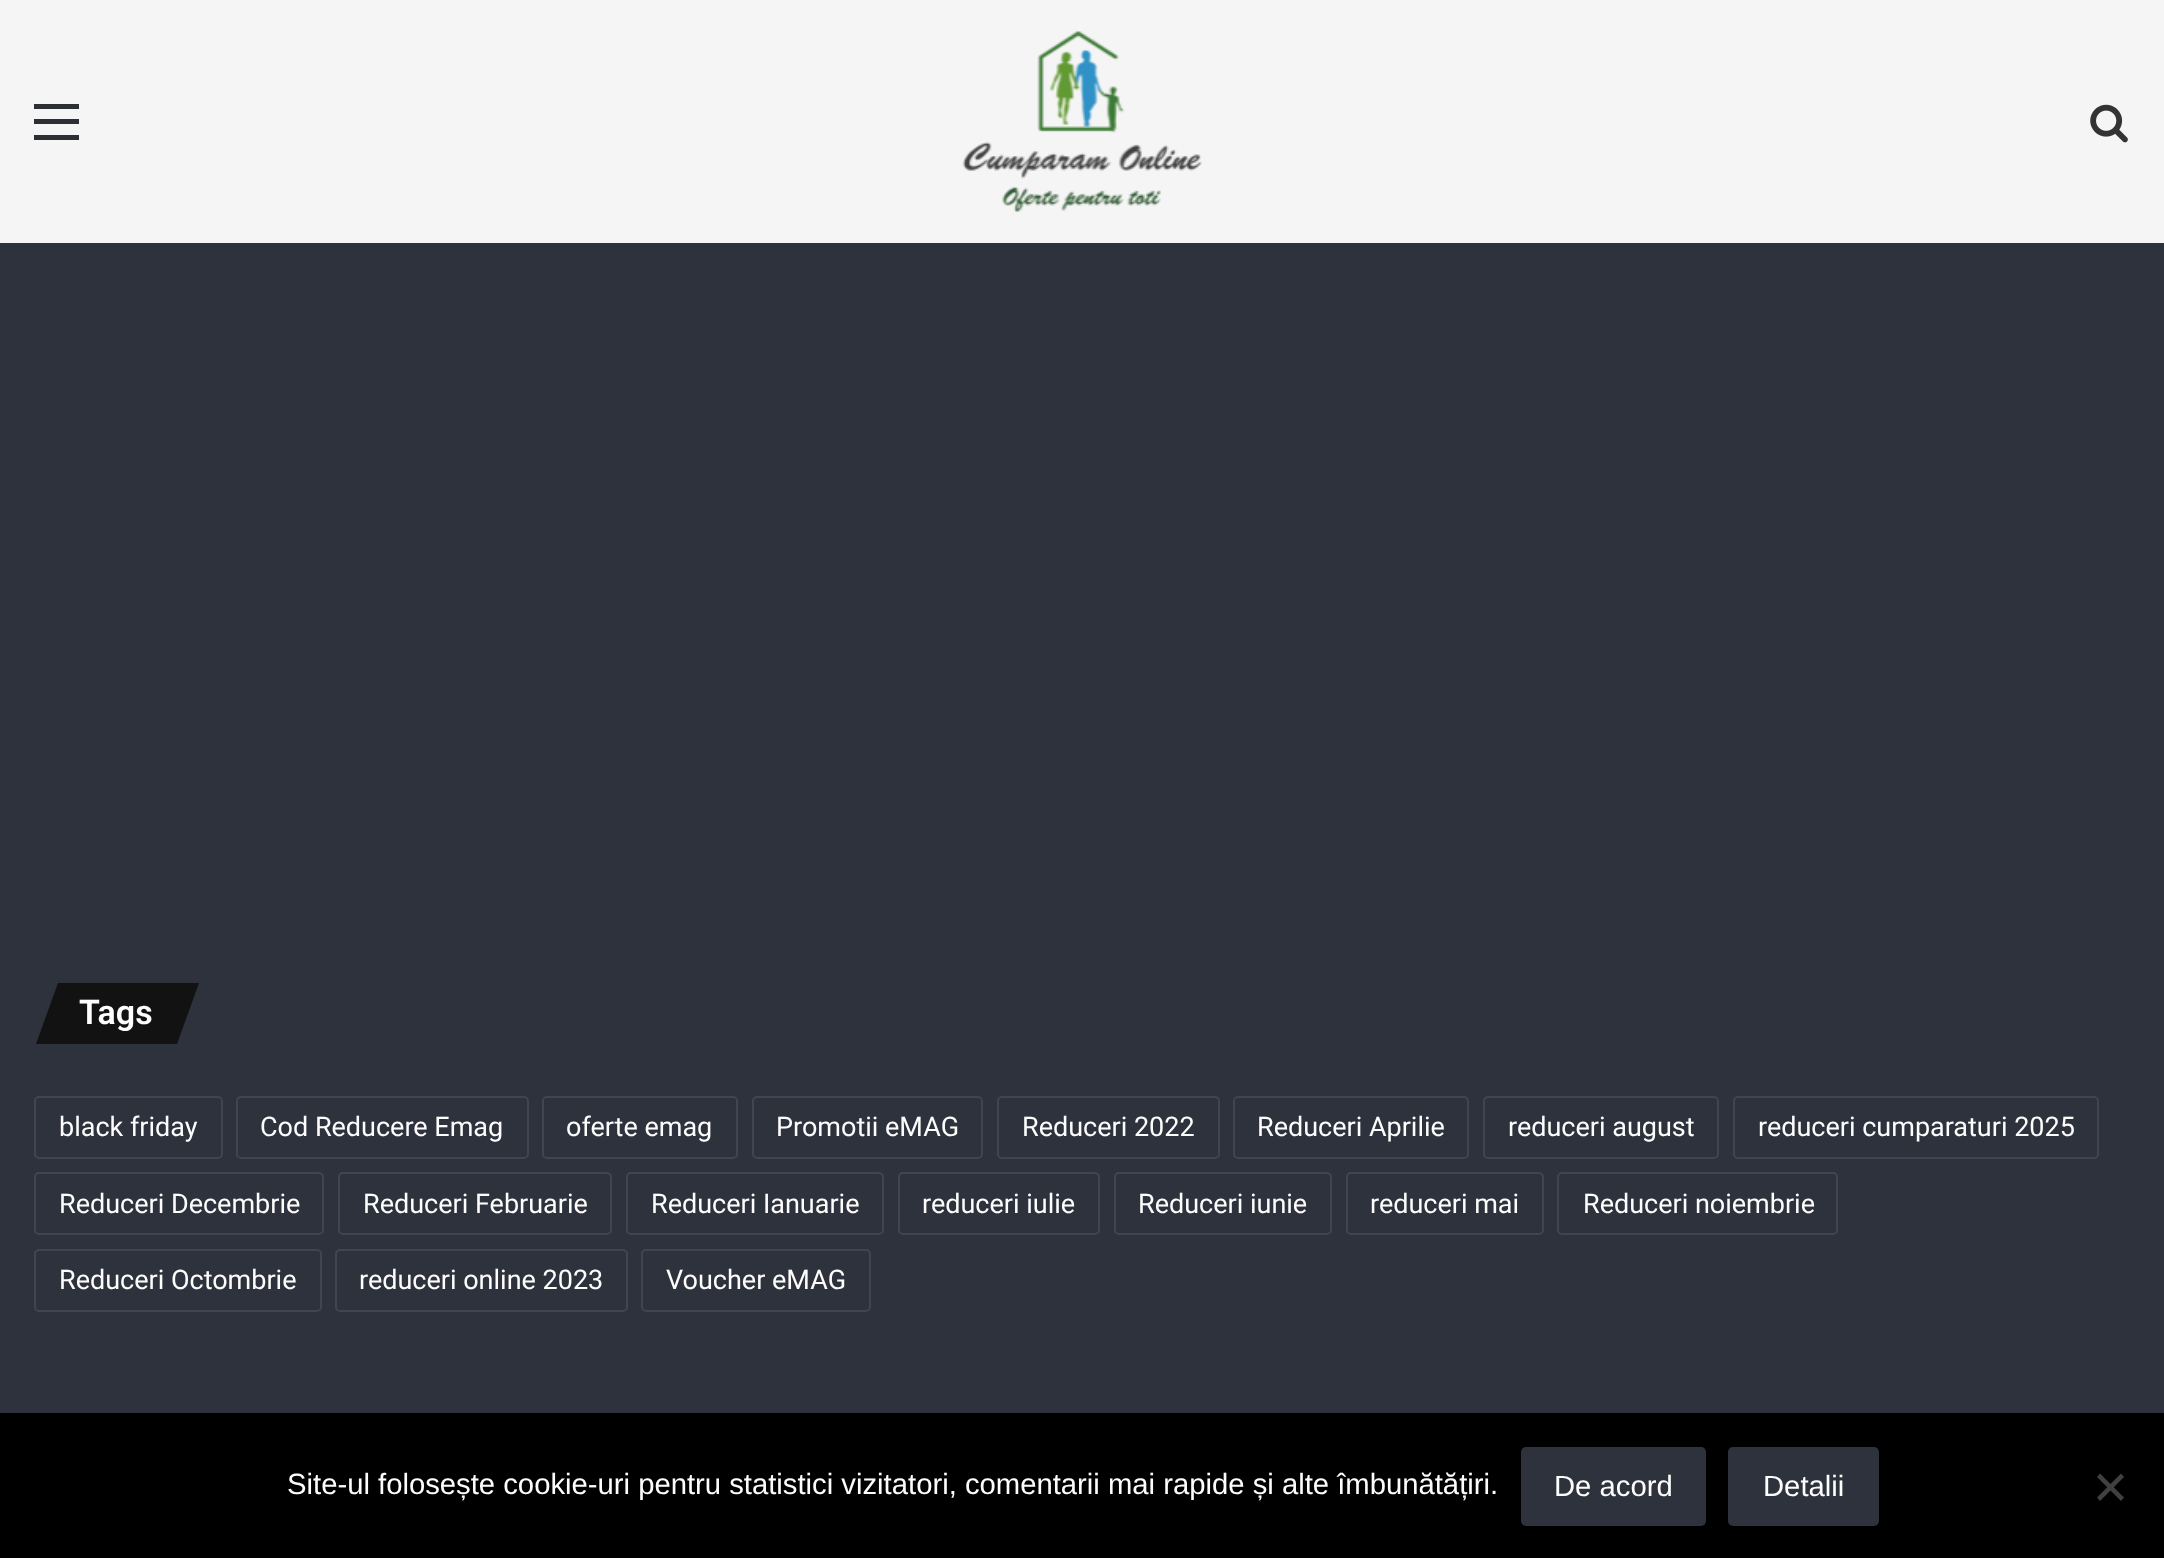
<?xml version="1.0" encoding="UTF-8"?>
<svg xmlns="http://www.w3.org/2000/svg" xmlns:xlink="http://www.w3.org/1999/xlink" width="2164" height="1558">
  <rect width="100%" height="100%" fill="#2e323c" />
  <rect width="2164" height="243" fill="#f5f5f5" />
  <rect x="34" y="119" width="45" height="5" fill="#2c2f34" />
  <rect x="34" y="104" width="45" height="5" fill="#2c2f34" />
  <rect x="34" y="135" width="45" height="5" fill="#2c2f34" />
  <image x="962" y="31" width="240" height="181" xlink:href="image1.png" />
  <image x="2090" y="104" width="38" height="39" xlink:href="image2.png" />
  <path d="M 58 983 h 141 l -22 61 h -141 z" fill="#121212" />
  <rect x="35" y="1097" width="187" height="61" rx="4" fill="none" stroke="#42454e" stroke-width="2" />
  <rect x="237" y="1097" width="291" height="61" rx="4" fill="none" stroke="#42454e" stroke-width="2" />
  <rect x="543" y="1097" width="194" height="61" rx="4" fill="none" stroke="#42454e" stroke-width="2" />
  <rect x="753" y="1097" width="229" height="61" rx="4" fill="none" stroke="#42454e" stroke-width="2" />
  <rect x="998" y="1097" width="221" height="61" rx="4" fill="none" stroke="#42454e" stroke-width="2" />
  <rect x="1234" y="1097" width="234" height="61" rx="4" fill="none" stroke="#42454e" stroke-width="2" />
  <rect x="1484" y="1097" width="234" height="61" rx="4" fill="none" stroke="#42454e" stroke-width="2" />
  <rect x="1734" y="1097" width="364" height="61" rx="4" fill="none" stroke="#42454e" stroke-width="2" />
  <rect x="35" y="1173" width="288" height="61" rx="4" fill="none" stroke="#42454e" stroke-width="2" />
  <rect x="339" y="1173" width="272" height="61" rx="4" fill="none" stroke="#42454e" stroke-width="2" />
  <rect x="627" y="1173" width="256" height="61" rx="4" fill="none" stroke="#42454e" stroke-width="2" />
  <rect x="899" y="1173" width="200" height="61" rx="4" fill="none" stroke="#42454e" stroke-width="2" />
  <rect x="1115" y="1173" width="216" height="61" rx="4" fill="none" stroke="#42454e" stroke-width="2" />
  <rect x="1347" y="1173" width="196" height="61" rx="4" fill="none" stroke="#42454e" stroke-width="2" />
  <rect x="1558" y="1173" width="279" height="61" rx="4" fill="none" stroke="#42454e" stroke-width="2" />
  <rect x="35" y="1250" width="286" height="61" rx="4" fill="none" stroke="#42454e" stroke-width="2" />
  <rect x="336" y="1250" width="291" height="61" rx="4" fill="none" stroke="#42454e" stroke-width="2" />
  <rect x="642" y="1250" width="228" height="61" rx="4" fill="none" stroke="#42454e" stroke-width="2" />
  <rect y="1413" width="2164" height="145" fill="#000000" />
  <rect x="1521" y="1447" width="185" height="79" rx="5" fill="#2e323c" />
  <rect x="1728" y="1447" width="151" height="79" rx="5" fill="#2e323c" />
  <path d="M 2121 1473.5 l 3 3.5 l -24 24 l -3 -3.5 z" fill="#404040" />
  <path d="M 2097 1477 l 3 -3.5 l 24 24 l -3 3.5 z" fill="#404040" />
  <text x="79" y="1024" style="font-family: Roboto; font-size: 34px; font-weight: 600; fill: #fdfdfd">Tags</text>
  <text x="59" y="1136" style="font-family: Roboto; font-size: 27px; fill: #fdfdfd">black friday</text>
  <text x="260" y="1136" style="font-family: Roboto; font-size: 27px; fill: #fdfdfd">Cod Reducere Emag</text>
  <text x="566" y="1136" style="font-family: Roboto; font-size: 27px; fill: #fdfdfd">oferte emag</text>
  <text x="776" y="1136" style="font-family: Roboto; font-size: 27px; fill: #fdfdfd">Promotii eMAG</text>
  <text x="1022" y="1136" style="font-family: Roboto; font-size: 27px; fill: #fdfdfd">Reduceri 2022</text>
  <text x="1257" y="1136" style="font-family: Roboto; font-size: 27px; fill: #fdfdfd">Reduceri Aprilie</text>
  <text x="1508" y="1136" style="font-family: Roboto; font-size: 27px; fill: #fdfdfd">reduceri august</text>
  <text x="1758" y="1136" style="font-family: Roboto; font-size: 27px; fill: #fdfdfd">reduceri cumparaturi 2025</text>
  <text x="59" y="1213" style="font-family: Roboto; font-size: 27px; fill: #fdfdfd">Reduceri Decembrie</text>
  <text x="363" y="1213" style="font-family: Roboto; font-size: 27px; fill: #fdfdfd">Reduceri Februarie</text>
  <text x="651" y="1213" style="font-family: Roboto; font-size: 27px; fill: #fdfdfd">Reduceri Ianuarie</text>
  <text x="922" y="1213" style="font-family: Roboto; font-size: 27px; fill: #fdfdfd">reduceri iulie</text>
  <text x="1138" y="1213" style="font-family: Roboto; font-size: 27px; fill: #fdfdfd">Reduceri iunie</text>
  <text x="1370" y="1213" style="font-family: Roboto; font-size: 27px; fill: #fdfdfd">reduceri mai</text>
  <text x="1583" y="1213" style="font-family: Roboto; font-size: 27px; fill: #fdfdfd">Reduceri noiembrie</text>
  <text x="59" y="1289" style="font-family: Roboto; font-size: 27px; fill: #fdfdfd">Reduceri Octombrie</text>
  <text x="359" y="1289" style="font-family: Roboto; font-size: 27px; fill: #fdfdfd">reduceri online 2023</text>
  <text x="666" y="1289" style="font-family: Roboto; font-size: 27px; fill: #fdfdfd">Voucher eMAG</text>
  <text x="287" y="1494" style="font-family: Liberation Sans; font-size: 29.25px; fill: #fdfdfd">Site-ul folosește cookie-uri pentru statistici vizitatori, comentarii mai rapide și alte îmbunătățiri.</text>
  <text x="1554" y="1496" style="font-family: Liberation Sans; font-size: 29.25px; fill: #fdfdfd">De acord</text>
  <text x="1763" y="1496" style="font-family: Liberation Sans; font-size: 29.25px; fill: #fdfdfd">Detalii</text>
</svg>
